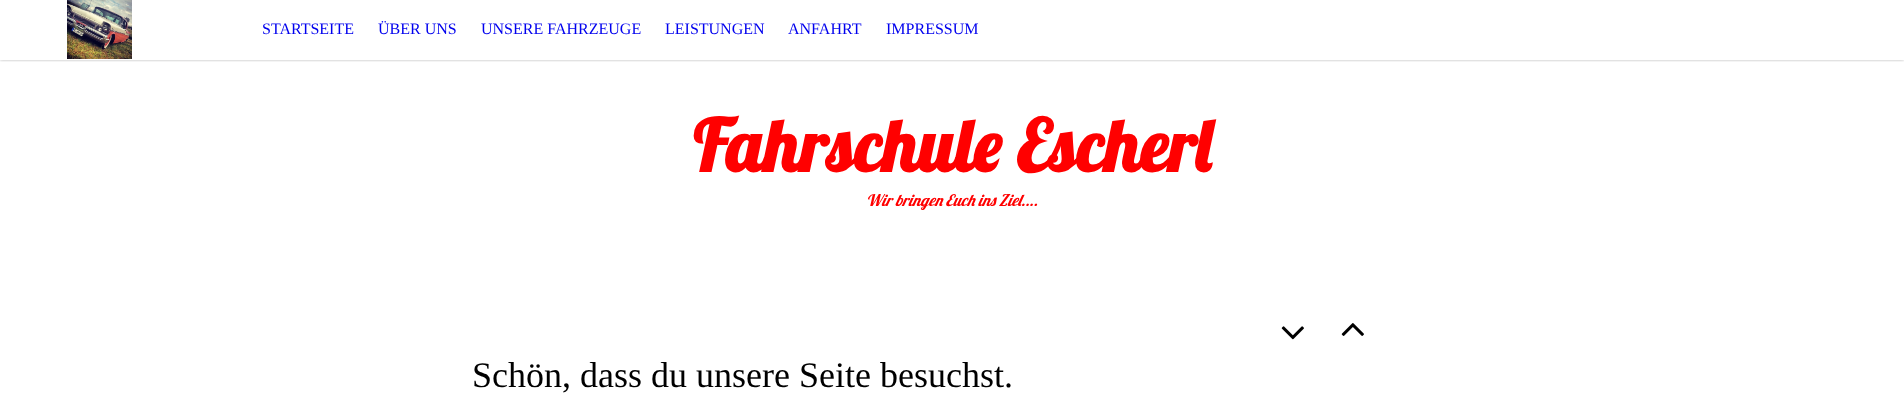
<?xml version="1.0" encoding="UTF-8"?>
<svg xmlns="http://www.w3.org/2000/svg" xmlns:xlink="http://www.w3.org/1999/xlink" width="1904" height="399">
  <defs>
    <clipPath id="clip1"><rect x="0" y="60" width="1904" height="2" /></clipPath>
  </defs>
  <rect width="100%" height="100%" fill="#ffffff" />
  <g clip-path="url(#clip1)">
    <rect width="1904" height="60" fill="#000000" fill-opacity="0.3" filter="blur(1.5px)" />
  </g>
  <image x="67" y="0" width="65" height="59" xlink:href="image1.png" />
  <image x="1281" y="326" width="23" height="14" xlink:href="image2.png" />
  <image x="1341" y="323" width="23" height="13" xlink:href="image3.png" />
  <text x="262" y="34" style="font-family: Liberation Serif; font-size: 16px; fill: #0000ee">STARTSEITE</text>
  <text x="378" y="34" style="font-family: Liberation Serif; font-size: 16px; fill: #0000ee">ÜBER UNS</text>
  <text x="481" y="34" style="font-family: Liberation Serif; font-size: 16px; fill: #0000ee">UNSERE FAHRZEUGE</text>
  <text x="665" y="34" style="font-family: Liberation Serif; font-size: 16px; fill: #0000ee">LEISTUNGEN</text>
  <text x="788" y="34" style="font-family: Liberation Serif; font-size: 16px; fill: #0000ee">ANFAHRT</text>
  <text x="886" y="34" style="font-family: Liberation Serif; font-size: 16px; fill: #0000ee">IMPRESSUM</text>
  <text x="693" y="172" style="font-family: Lobster; font-size: 72px; font-weight: bold; fill: #ff0000">Fahrschule Escherl</text>
  <text x="866" y="206" style="font-family: Lobster; font-size: 16px; font-style: italic; fill: #ff0000">Wir bringen Euch ins Ziel....</text>
  <text x="472" y="387" style="font-family: Liberation Serif; font-size: 36px; fill: #000000">Schön, dass du unsere Seite besuchst.</text>
</svg>
